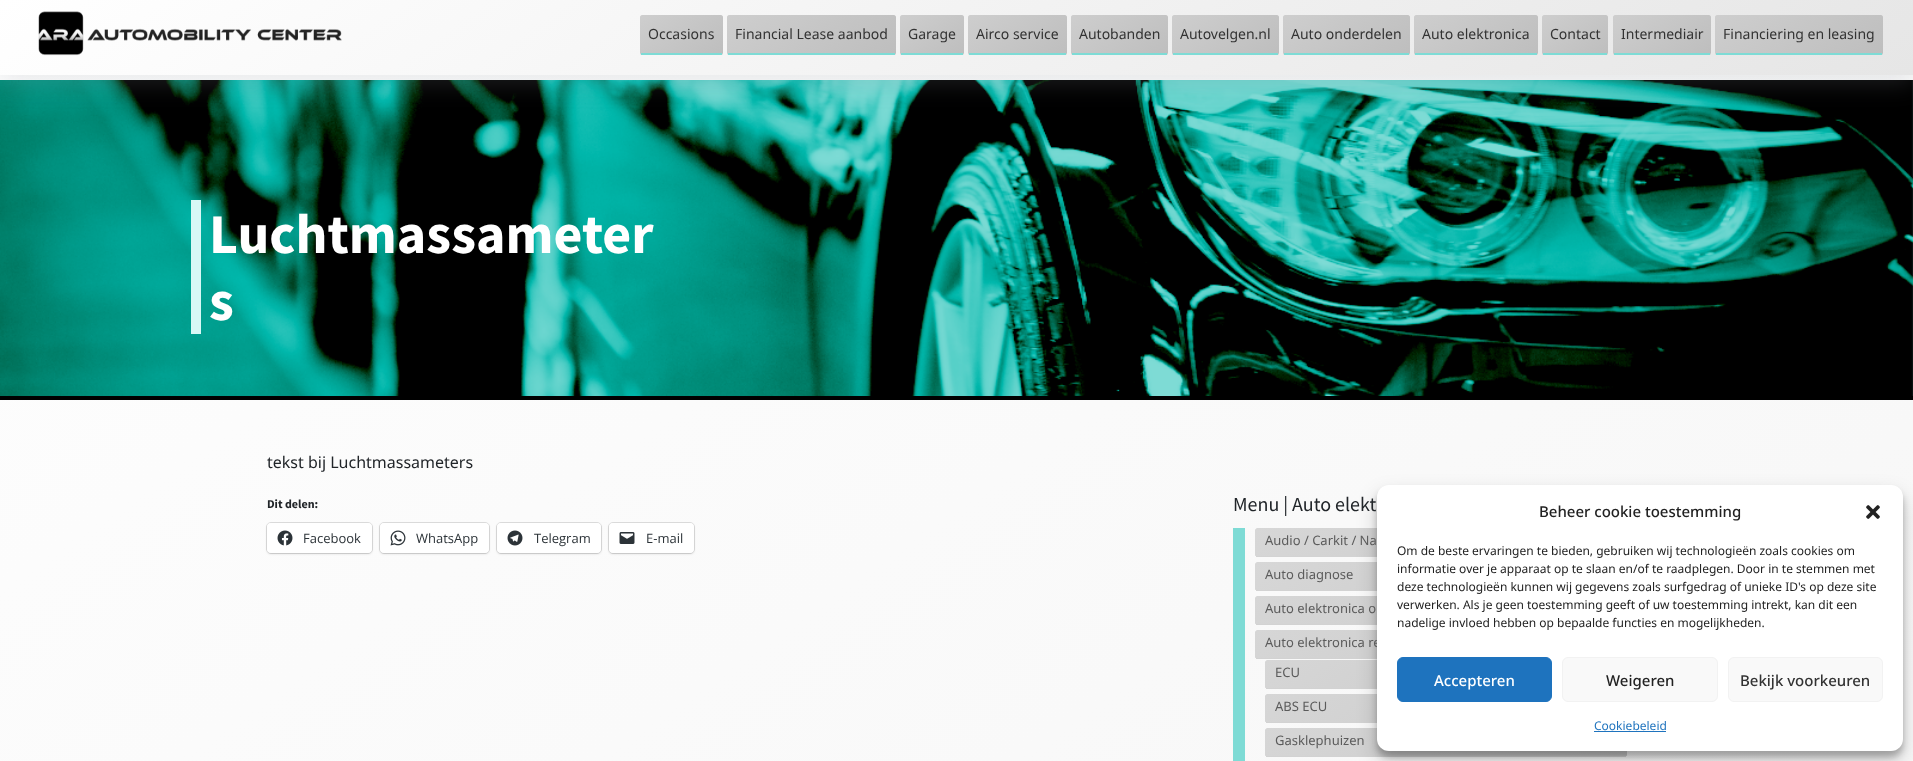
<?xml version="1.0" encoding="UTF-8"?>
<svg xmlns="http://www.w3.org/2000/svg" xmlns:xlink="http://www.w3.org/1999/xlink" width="1913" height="761">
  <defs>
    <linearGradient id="g1" gradientUnits="userSpaceOnUse" x1="-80" y1="56" x2="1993" y2="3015"><stop offset="0" stop-color="#fefefe" /><stop offset="1" stop-color="#efefef" /></linearGradient>
    <linearGradient id="g2" gradientUnits="userSpaceOnUse" x1="624" y1="-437" x2="1289" y2="512"><stop offset="0" stop-color="#ffffff" /><stop offset="1" stop-color="#e6e6e6" /></linearGradient>
    <linearGradient id="g3" gradientUnits="userSpaceOnUse" x1="659" y1="1.8" x2="704" y2="66"><stop offset="0" stop-color="#cecece" /><stop offset="1" stop-color="#bebebe" /></linearGradient>
    <linearGradient id="g4" gradientUnits="userSpaceOnUse" x1="659" y1="40" x2="704" y2="104"><stop offset="0" stop-color="#cecece" /><stop offset="1" stop-color="#bebebe" /></linearGradient>
    <linearGradient id="g5" gradientUnits="userSpaceOnUse" x1="775" y1="-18" x2="848" y2="86"><stop offset="0" stop-color="#cecece" /><stop offset="1" stop-color="#bebebe" /></linearGradient>
    <linearGradient id="g6" gradientUnits="userSpaceOnUse" x1="775" y1="20" x2="848" y2="124"><stop offset="0" stop-color="#cecece" /><stop offset="1" stop-color="#bebebe" /></linearGradient>
    <linearGradient id="g7" gradientUnits="userSpaceOnUse" x1="913" y1="6.2" x2="951" y2="62"><stop offset="0" stop-color="#cecece" /><stop offset="1" stop-color="#bebebe" /></linearGradient>
    <linearGradient id="g8" gradientUnits="userSpaceOnUse" x1="913" y1="44" x2="951" y2="100"><stop offset="0" stop-color="#cecece" /><stop offset="1" stop-color="#bebebe" /></linearGradient>
    <linearGradient id="g9" gradientUnits="userSpaceOnUse" x1="992" y1="-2" x2="1043" y2="70"><stop offset="0" stop-color="#cecece" /><stop offset="1" stop-color="#bebebe" /></linearGradient>
    <linearGradient id="g10" gradientUnits="userSpaceOnUse" x1="992" y1="36" x2="1043" y2="108"><stop offset="0" stop-color="#cecece" /><stop offset="1" stop-color="#bebebe" /></linearGradient>
    <linearGradient id="g11" gradientUnits="userSpaceOnUse" x1="1095" y1="-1.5" x2="1144" y2="70"><stop offset="0" stop-color="#cecece" /><stop offset="1" stop-color="#bebebe" /></linearGradient>
    <linearGradient id="g12" gradientUnits="userSpaceOnUse" x1="1095" y1="36" x2="1144" y2="108"><stop offset="0" stop-color="#cecece" /><stop offset="1" stop-color="#bebebe" /></linearGradient>
    <linearGradient id="g13" gradientUnits="userSpaceOnUse" x1="1199" y1="-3.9" x2="1252" y2="72"><stop offset="0" stop-color="#cecece" /><stop offset="1" stop-color="#bebebe" /></linearGradient>
    <linearGradient id="g14" gradientUnits="userSpaceOnUse" x1="1199" y1="34" x2="1252" y2="110"><stop offset="0" stop-color="#cecece" /><stop offset="1" stop-color="#bebebe" /></linearGradient>
    <linearGradient id="g15" gradientUnits="userSpaceOnUse" x1="1317" y1="-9" x2="1376" y2="77"><stop offset="0" stop-color="#cecece" /><stop offset="1" stop-color="#bebebe" /></linearGradient>
    <linearGradient id="g16" gradientUnits="userSpaceOnUse" x1="1317" y1="29" x2="1376" y2="115"><stop offset="0" stop-color="#cecece" /><stop offset="1" stop-color="#bebebe" /></linearGradient>
    <linearGradient id="g17" gradientUnits="userSpaceOnUse" x1="1447" y1="-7.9" x2="1505" y2="76"><stop offset="0" stop-color="#cecece" /><stop offset="1" stop-color="#bebebe" /></linearGradient>
    <linearGradient id="g18" gradientUnits="userSpaceOnUse" x1="1447" y1="30" x2="1505" y2="114"><stop offset="0" stop-color="#cecece" /><stop offset="1" stop-color="#bebebe" /></linearGradient>
    <linearGradient id="g19" gradientUnits="userSpaceOnUse" x1="1555" y1="5.7" x2="1595" y2="62"><stop offset="0" stop-color="#cecece" /><stop offset="1" stop-color="#bebebe" /></linearGradient>
    <linearGradient id="g20" gradientUnits="userSpaceOnUse" x1="1555" y1="44" x2="1595" y2="100"><stop offset="0" stop-color="#cecece" /><stop offset="1" stop-color="#bebebe" /></linearGradient>
    <linearGradient id="g21" gradientUnits="userSpaceOnUse" x1="1637" y1="-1.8" x2="1687" y2="70"><stop offset="0" stop-color="#cecece" /><stop offset="1" stop-color="#bebebe" /></linearGradient>
    <linearGradient id="g22" gradientUnits="userSpaceOnUse" x1="1637" y1="36" x2="1687" y2="108"><stop offset="0" stop-color="#cecece" /><stop offset="1" stop-color="#bebebe" /></linearGradient>
    <linearGradient id="g23" gradientUnits="userSpaceOnUse" x1="1762" y1="-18" x2="1836" y2="86"><stop offset="0" stop-color="#cecece" /><stop offset="1" stop-color="#bebebe" /></linearGradient>
    <linearGradient id="g24" gradientUnits="userSpaceOnUse" x1="1762" y1="20" x2="1836" y2="124"><stop offset="0" stop-color="#cecece" /><stop offset="1" stop-color="#bebebe" /></linearGradient>
    <clipPath id="clip1"><rect x="1255" y="528" width="382" height="29" rx="2" /></clipPath>
    <linearGradient id="g25" gradientUnits="userSpaceOnUse" x1="1377" y1="443" x2="1515" y2="641"><stop offset="0" stop-color="#d7d7d7" /><stop offset="1" stop-color="#cacaca" /></linearGradient>
    <clipPath id="clip2"><rect x="1255" y="562" width="382" height="29" rx="2" /></clipPath>
    <linearGradient id="g26" gradientUnits="userSpaceOnUse" x1="1377" y1="477" x2="1515" y2="675"><stop offset="0" stop-color="#d7d7d7" /><stop offset="1" stop-color="#cacaca" /></linearGradient>
    <clipPath id="clip3"><rect x="1255" y="596" width="382" height="29" rx="2" /></clipPath>
    <linearGradient id="g27" gradientUnits="userSpaceOnUse" x1="1377" y1="511" x2="1515" y2="709"><stop offset="0" stop-color="#d6d6d6" /><stop offset="1" stop-color="#cacaca" /></linearGradient>
    <clipPath id="clip4"><rect x="1255" y="630" width="382" height="29" rx="2" /></clipPath>
    <linearGradient id="g28" gradientUnits="userSpaceOnUse" x1="1377" y1="545" x2="1515" y2="743"><stop offset="0" stop-color="#d6d6d6" /><stop offset="1" stop-color="#cacaca" /></linearGradient>
    <clipPath id="clip5"><rect x="1265" y="660" width="362" height="29" rx="2" /></clipPath>
    <linearGradient id="g29" gradientUnits="userSpaceOnUse" x1="1380" y1="580" x2="1512" y2="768"><stop offset="0" stop-color="#d6d6d6" /><stop offset="1" stop-color="#cacaca" /></linearGradient>
    <clipPath id="clip6"><rect x="1265" y="694" width="362" height="29" rx="2" /></clipPath>
    <linearGradient id="g30" gradientUnits="userSpaceOnUse" x1="1380" y1="614" x2="1512" y2="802"><stop offset="0" stop-color="#d6d6d6" /><stop offset="1" stop-color="#cacaca" /></linearGradient>
    <clipPath id="clip7"><rect x="1265" y="728" width="362" height="29" rx="2" /></clipPath>
    <linearGradient id="g31" gradientUnits="userSpaceOnUse" x1="1380" y1="648" x2="1512" y2="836"><stop offset="0" stop-color="#d6d6d6" /><stop offset="1" stop-color="#cacaca" /></linearGradient>
  </defs>
  <rect width="100%" height="100%" fill="#ffffff" />
  <rect y="75" width="1913" height="686" fill="url(#g1)" />
  <image x="0" y="80" width="1913" height="316" xlink:href="image2.png" />
  <rect y="8" width="1913" height="75" fill="#959da5" fill-opacity="0.2" filter="blur(12px)" />
  <rect width="1913" height="75" fill="url(#g2)" />
  <image x="38" y="11" width="304" height="45" xlink:href="image1.png" />
  <path d="M 642 15 h 79 c 1 0 2 1 2 2 v 36 h -83 v -36 c 0 -1 1 -2 2 -2 z" fill="url(#g3)" />
  <path d="M 640 53 h 83 c 0 1 -1 2 -2 2 h -79 c -1 0 -2 -1 -2 -2 z" fill="url(#g4)" />
  <rect x="641" y="53" width="81" height="2" fill="#7edbd5" />
  <path d="M 729 15 h 165 c 1 0 2 1 2 2 v 36 h -169 v -36 c 0 -1 1 -2 2 -2 z" fill="url(#g5)" />
  <path d="M 727 53 h 169 c 0 1 -1 2 -2 2 h -165 c -1 0 -2 -1 -2 -2 z" fill="url(#g6)" />
  <rect x="728" y="53" width="167" height="2" fill="#7edbd5" />
  <path d="M 902 15 h 60 c 1 0 2 1 2 2 v 36 h -64 v -36 c 0 -1 1 -2 2 -2 z" fill="url(#g7)" />
  <path d="M 900 53 h 64 c 0 1 -1 2 -2 2 h -60 c -1 0 -2 -1 -2 -2 z" fill="url(#g8)" />
  <rect x="901" y="53" width="62" height="2" fill="#7edbd5" />
  <path d="M 970 15 h 95 c 1 0 2 1 2 2 v 36 h -99 v -36 c 0 -1 1 -2 2 -2 z" fill="url(#g9)" />
  <path d="M 968 53 h 99 c 0 1 -1 2 -2 2 h -95 c -1 0 -2 -1 -2 -2 z" fill="url(#g10)" />
  <rect x="969" y="53" width="97" height="2" fill="#7edbd5" />
  <path d="M 1073 15 h 93 c 1 0 2 1 2 2 v 36 h -97 v -36 c 0 -1 1 -2 2 -2 z" fill="url(#g11)" />
  <path d="M 1071 53 h 97 c 0 1 -1 2 -2 2 h -93 c -1 0 -2 -1 -2 -2 z" fill="url(#g12)" />
  <rect x="1072" y="53" width="95" height="2" fill="#7edbd5" />
  <path d="M 1174 15 h 103 c 1 0 2 1 2 2 v 36 h -107 v -36 c 0 -1 1 -2 2 -2 z" fill="url(#g13)" />
  <path d="M 1172 53 h 107 c 0 1 -1 2 -2 2 h -103 c -1 0 -2 -1 -2 -2 z" fill="url(#g14)" />
  <rect x="1173" y="53" width="105" height="2" fill="#7edbd5" />
  <path d="M 1285 15 h 123 c 1 0 2 1 2 2 v 36 h -127 v -36 c 0 -1 1 -2 2 -2 z" fill="url(#g15)" />
  <path d="M 1283 53 h 127 c 0 1 -1 2 -2 2 h -123 c -1 0 -2 -1 -2 -2 z" fill="url(#g16)" />
  <rect x="1284" y="53" width="125" height="2" fill="#7edbd5" />
  <path d="M 1416 15 h 120 c 1 0 2 1 2 2 v 36 h -124 v -36 c 0 -1 1 -2 2 -2 z" fill="url(#g17)" />
  <path d="M 1414 53 h 124 c 0 1 -1 2 -2 2 h -120 c -1 0 -2 -1 -2 -2 z" fill="url(#g18)" />
  <rect x="1415" y="53" width="122" height="2" fill="#7edbd5" />
  <path d="M 1544 15 h 62 c 1 0 2 1 2 2 v 36 h -66 v -36 c 0 -1 1 -2 2 -2 z" fill="url(#g19)" />
  <path d="M 1542 53 h 66 c 0 1 -1 2 -2 2 h -62 c -1 0 -2 -1 -2 -2 z" fill="url(#g20)" />
  <rect x="1543" y="53" width="64" height="2" fill="#7edbd5" />
  <path d="M 1615 15 h 94 c 1 0 2 1 2 2 v 36 h -98 v -36 c 0 -1 1 -2 2 -2 z" fill="url(#g21)" />
  <path d="M 1613 53 h 98 c 0 1 -1 2 -2 2 h -94 c -1 0 -2 -1 -2 -2 z" fill="url(#g22)" />
  <rect x="1614" y="53" width="96" height="2" fill="#7edbd5" />
  <path d="M 1717 15 h 164 c 1 0 2 1 2 2 v 36 h -168 v -36 c 0 -1 1 -2 2 -2 z" fill="url(#g23)" />
  <path d="M 1715 53 h 168 c 0 1 -1 2 -2 2 h -164 c -1 0 -2 -1 -2 -2 z" fill="url(#g24)" />
  <rect x="1716" y="53" width="166" height="2" fill="#7edbd5" />
  <rect y="396" width="1913" height="4" fill="#000000" />
  <rect x="191" y="200" width="10" height="134" fill="#d7f8f6" />
  <rect x="266.5" y="522.5" width="106" height="31" rx="4.5" fill="none" stroke="#dddddd" />
  <rect x="267" y="524" width="105" height="30" rx="4" fill="#000000" fill-opacity="0.12" filter="blur(1px)" />
  <rect x="267" y="523" width="105" height="30" rx="4" fill="#ffffff" />
  <image x="277" y="530" width="16" height="16" xlink:href="image3.png" />
  <rect x="379.5" y="522.5" width="110" height="31" rx="4.5" fill="none" stroke="#dddddd" />
  <rect x="380" y="524" width="109" height="30" rx="4" fill="#000000" fill-opacity="0.12" filter="blur(1px)" />
  <rect x="380" y="523" width="109" height="30" rx="4" fill="#ffffff" />
  <image x="390" y="530" width="16" height="16" xlink:href="image4.png" />
  <rect x="496.5" y="522.5" width="105" height="31" rx="4.5" fill="none" stroke="#dddddd" />
  <rect x="497" y="524" width="104" height="30" rx="4" fill="#000000" fill-opacity="0.12" filter="blur(1px)" />
  <rect x="497" y="523" width="104" height="30" rx="4" fill="#ffffff" />
  <image x="507" y="530" width="16" height="16" xlink:href="image5.png" />
  <rect x="608.5" y="522.5" width="86" height="31" rx="4.5" fill="none" stroke="#dddddd" />
  <rect x="609" y="524" width="85" height="30" rx="4" fill="#000000" fill-opacity="0.12" filter="blur(1px)" />
  <rect x="609" y="523" width="85" height="30" rx="4" fill="#ffffff" />
  <image x="619" y="532" width="16" height="12" xlink:href="image6.png" />
  <rect x="1233" y="528" width="12" height="233" fill="#7edbd5" />
  <g clip-path="url(#clip1)">
    <path d="M 1257 528 h 378 c 1 0 2 1 2 2 v 26 h -382 v -26 c 0 -1 1 -2 2 -2 z" fill="url(#g25)" />
  </g>
  <rect x="1256" y="556" width="121" height="1" fill="#d3d3d3" />
  <g clip-path="url(#clip2)">
    <path d="M 1257 562 h 378 c 1 0 2 1 2 2 v 26 h -382 v -26 c 0 -1 1 -2 2 -2 z" fill="url(#g26)" />
  </g>
  <rect x="1256" y="590" width="121" height="1" fill="#d3d3d3" />
  <g clip-path="url(#clip3)">
    <path d="M 1257 596 h 378 c 1 0 2 1 2 2 v 26 h -382 v -26 c 0 -1 1 -2 2 -2 z" fill="url(#g27)" />
  </g>
  <rect x="1256" y="624" width="121" height="1" fill="#d2d2d2" />
  <g clip-path="url(#clip4)">
    <path d="M 1257 630 h 378 c 1 0 2 1 2 2 v 26 h -382 v -26 c 0 -1 1 -2 2 -2 z" fill="url(#g28)" />
  </g>
  <rect x="1256" y="658" width="121" height="1" fill="#d2d2d2" />
  <g clip-path="url(#clip5)">
    <path d="M 1267 660 h 358 c 1 0 2 1 2 2 v 26 h -362 v -26 c 0 -1 1 -2 2 -2 z" fill="url(#g29)" />
  </g>
  <rect x="1266" y="688" width="111" height="1" fill="#d2d2d2" />
  <g clip-path="url(#clip6)">
    <path d="M 1267 694 h 358 c 1 0 2 1 2 2 v 26 h -362 v -26 c 0 -1 1 -2 2 -2 z" fill="url(#g30)" />
  </g>
  <rect x="1266" y="722" width="111" height="1" fill="#d2d2d2" />
  <g clip-path="url(#clip7)">
    <path d="M 1267 728 h 358 c 1 0 2 1 2 2 v 26 h -362 v -26 c 0 -1 1 -2 2 -2 z" fill="url(#g31)" />
  </g>
  <rect x="1266" y="756" width="360" height="1" fill="#d2d2d2" />
  <rect x="1377" y="491" width="526" height="266" rx="12" fill="#000000" fill-opacity="0.23" filter="blur(3px)" />
  <rect x="1377" y="495" width="526" height="266" rx="12" fill="#000000" fill-opacity="0.19" filter="blur(10px)" />
  <text x="648" y="39" style="font-family: Noto Sans; font-size: 14px; fill: #333333">Occasions</text>
  <text x="735" y="39" style="font-family: Noto Sans; font-size: 14px; fill: #333333">Financial Lease aanbod</text>
  <text x="908" y="39" style="font-family: Noto Sans; font-size: 14px; fill: #333333">Garage</text>
  <text x="976" y="39" style="font-family: Noto Sans; font-size: 14px; fill: #333333">Airco service</text>
  <text x="1079" y="39" style="font-family: Noto Sans; font-size: 14px; fill: #333333">Autobanden</text>
  <text x="1180" y="39" style="font-family: Noto Sans; font-size: 14px; fill: #333333">Autovelgen.nl</text>
  <text x="1291" y="39" style="font-family: Noto Sans; font-size: 14px; fill: #333333">Auto onderdelen</text>
  <text x="1422" y="39" style="font-family: Noto Sans; font-size: 14px; fill: #333333">Auto elektronica</text>
  <text x="1550" y="39" style="font-family: Noto Sans; font-size: 14px; fill: #333333">Contact</text>
  <text x="1621" y="39" style="font-family: Noto Sans; font-size: 14px; fill: #333333">Intermediair</text>
  <text x="1723" y="39" style="font-family: Noto Sans; font-size: 14px; fill: #333333">Financiering en leasing</text>
  <text x="209" y="253" style="font-family: Source Sans Pro; font-size: 56px; font-weight: bold; fill: #ffffff">Luchtmassameter</text>
  <text x="209" y="320" style="font-family: Source Sans Pro; font-size: 56px; font-weight: bold; fill: #ffffff">s</text>
  <text x="267" y="468" style="font-family: Noto Sans; font-size: 16px; fill: #212529">tekst bij Luchtmassameters</text>
  <text x="267" y="508" style="font-family: Source Sans Pro; font-size: 12px; font-weight: bold; fill: #212529">Dit delen:</text>
  <text x="303" y="543" style="font-family: Open Sans; font-size: 13px; fill: #2c3338">Facebook</text>
  <text x="416" y="543" style="font-family: Open Sans; font-size: 13px; fill: #2c3338">WhatsApp</text>
  <text x="534" y="543" style="font-family: Open Sans; font-size: 13px; fill: #2c3338">Telegram</text>
  <text x="646" y="543" style="font-family: Open Sans; font-size: 13px; fill: #2c3338">E-mail</text>
  <text x="1233" y="511" style="font-family: Source Sans Pro; font-size: 20px; fill: #212529">Menu | Auto elekt</text>
  <text x="1265" y="545" style="font-family: Noto Sans; font-size: 13px; fill: #5b5b5b">Audio / Carkit / Na</text>
  <text x="1265" y="579" style="font-family: Noto Sans; font-size: 13px; fill: #5b5b5b">Auto diagnose</text>
  <text x="1265" y="613" style="font-family: Noto Sans; font-size: 13px; fill: #5b5b5b">Auto elektronica o</text>
  <text x="1265" y="647" style="font-family: Noto Sans; font-size: 13px; fill: #5b5b5b">Auto elektronica re</text>
  <text x="1275" y="677" style="font-family: Noto Sans; font-size: 13px; fill: #5b5b5b">ECU</text>
  <text x="1275" y="711" style="font-family: Noto Sans; font-size: 13px; fill: #5b5b5b">ABS ECU</text>
  <text x="1275" y="745" style="font-family: Noto Sans; font-size: 13px; fill: #5b5b5b">Gasklephuizen</text>
  <rect x="1377" y="485" width="526" height="266" rx="12" fill="#ffffff" />
  <text x="1539" y="517" style="font-family: Noto Sans; font-size: 15px; font-weight: 500; fill: #222222">Beheer cookie toestemming</text>
  <image x="1866" y="505" width="14" height="14" xlink:href="image7.png" />
  <text x="1397" y="555" style="font-family: Noto Sans; font-size: 12px; fill: #222222">Om de beste ervaringen te bieden, gebruiken wij technologieën zoals cookies om</text>
  <text x="1397" y="573" style="font-family: Noto Sans; font-size: 12px; fill: #222222">informatie over je apparaat op te slaan en/of te raadplegen. Door in te stemmen met</text>
  <text x="1397" y="591" style="font-family: Noto Sans; font-size: 12px; fill: #222222">deze technologieën kunnen wij gegevens zoals surfgedrag of unieke ID's op deze site</text>
  <text x="1397" y="609" style="font-family: Noto Sans; font-size: 12px; fill: #222222">verwerken. Als je geen toestemming geeft of uw toestemming intrekt, kan dit een</text>
  <text x="1397" y="627" style="font-family: Noto Sans; font-size: 12px; fill: #222222">nadelige invloed hebben op bepaalde functies en mogelijkheden.</text>
  <rect x="1397.5" y="657.5" width="154" height="44" rx="5.5" fill="#1e73be" stroke="#1e73be" />
  <text x="1434" y="686" style="font-family: Noto Sans; font-size: 15px; font-weight: 500; fill: #ffffff">Accepteren</text>
  <rect x="1562.5" y="657.5" width="155" height="44" rx="5.5" fill="#f9f9f9" stroke="#f2f2f2" />
  <text x="1606" y="686" style="font-family: Noto Sans; font-size: 15px; font-weight: 500; fill: #222222">Weigeren</text>
  <rect x="1728.5" y="657.5" width="154" height="44" rx="5.5" fill="#f9f9f9" stroke="#f2f2f2" />
  <text x="1740" y="686" style="font-family: Noto Sans; font-size: 15px; font-weight: 500; fill: #333333">Bekijk voorkeuren</text>
  <text x="1594" y="730" style="font-family: Noto Sans; font-size: 12px; fill: #1e73be">Cookiebeleid</text>
  <rect x="1594" y="731" width="72" height="1" fill="#1e73be" />
</svg>
